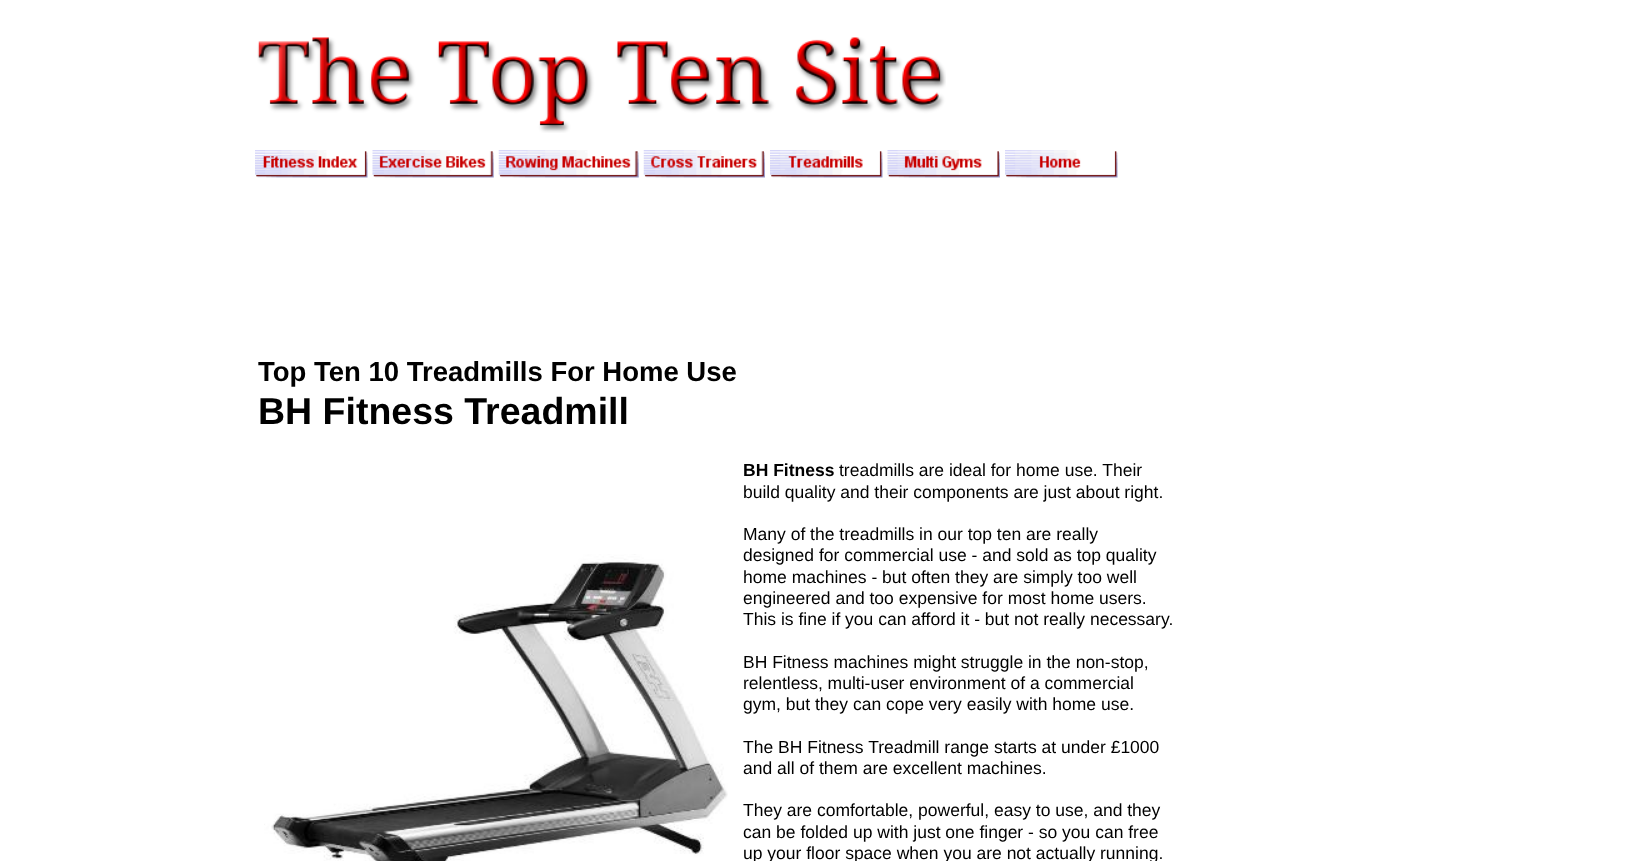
<?xml version="1.0" encoding="UTF-8"?>
<svg xmlns="http://www.w3.org/2000/svg" xmlns:xlink="http://www.w3.org/1999/xlink" width="1625" height="861">
  <rect width="100%" height="100%" fill="#ffffff" />
  <image x="257" y="37" width="689" height="96" xlink:href="image1.png" />
  <image x="255" y="150" width="113" height="28" xlink:href="image2.png" />
  <image x="372" y="150" width="122" height="28" xlink:href="image3.png" />
  <image x="498" y="150" width="141" height="28" xlink:href="image4.png" />
  <image x="643" y="150" width="122" height="28" xlink:href="image5.png" />
  <image x="770" y="150" width="113" height="28" xlink:href="image6.png" />
  <image x="887" y="150" width="113" height="28" xlink:href="image7.png" />
  <image x="1005" y="150" width="113" height="28" xlink:href="image8.png" />
  <image x="264" y="554" width="464" height="307" xlink:href="image9.png" />
  <text x="258" y="381" style="font-family: Liberation Sans; font-size: 27.5px; font-weight: bold; fill: #000000">Top Ten 10 Treadmills For Home Use</text>
  <text x="258" y="424" style="font-family: Liberation Sans; font-size: 37.5px; font-weight: bold; fill: #000000">BH Fitness Treadmill</text>
  <text x="743" y="476" style="font-family: Liberation Sans; font-size: 17.5px; font-weight: bold; fill: #000000">BH Fitness</text>
  <text x="839" y="476" style="font-family: Liberation Sans; font-size: 17.5px; fill: #000000">treadmills are ideal for home use. Their</text>
  <text x="743" y="498" style="font-family: Liberation Sans; font-size: 17.5px; fill: #000000">build quality and their components are just about right.</text>
  <text x="743" y="540" style="font-family: Liberation Sans; font-size: 17.5px; fill: #000000">Many of the treadmills in our top ten are really</text>
  <text x="743" y="561" style="font-family: Liberation Sans; font-size: 17.5px; fill: #000000">designed for commercial use - and sold as top quality</text>
  <text x="743" y="583" style="font-family: Liberation Sans; font-size: 17.5px; fill: #000000">home machines - but often they are simply too well</text>
  <text x="743" y="604" style="font-family: Liberation Sans; font-size: 17.5px; fill: #000000">engineered and too expensive for most home users.</text>
  <text x="743" y="625" style="font-family: Liberation Sans; font-size: 17.5px; fill: #000000">This is fine if you can afford it - but not really necessary.</text>
  <text x="743" y="668" style="font-family: Liberation Sans; font-size: 17.5px; fill: #000000">BH Fitness machines might struggle in the non-stop,</text>
  <text x="743" y="689" style="font-family: Liberation Sans; font-size: 17.5px; fill: #000000">relentless, multi-user environment of a commercial</text>
  <text x="743" y="710" style="font-family: Liberation Sans; font-size: 17.5px; fill: #000000">gym, but they can cope very easily with home use.</text>
  <text x="743" y="753" style="font-family: Liberation Sans; font-size: 17.5px; fill: #000000">The BH Fitness Treadmill range starts at under £1000</text>
  <text x="743" y="774" style="font-family: Liberation Sans; font-size: 17.5px; fill: #000000">and all of them are excellent machines.</text>
  <text x="743" y="816" style="font-family: Liberation Sans; font-size: 17.5px; fill: #000000">They are comfortable, powerful, easy to use, and they</text>
  <text x="743" y="838" style="font-family: Liberation Sans; font-size: 17.5px; fill: #000000">can be folded up with just one finger - so you can free</text>
  <text x="743" y="859" style="font-family: Liberation Sans; font-size: 17.5px; fill: #000000">up your floor space when you are not actually running.</text>
</svg>
